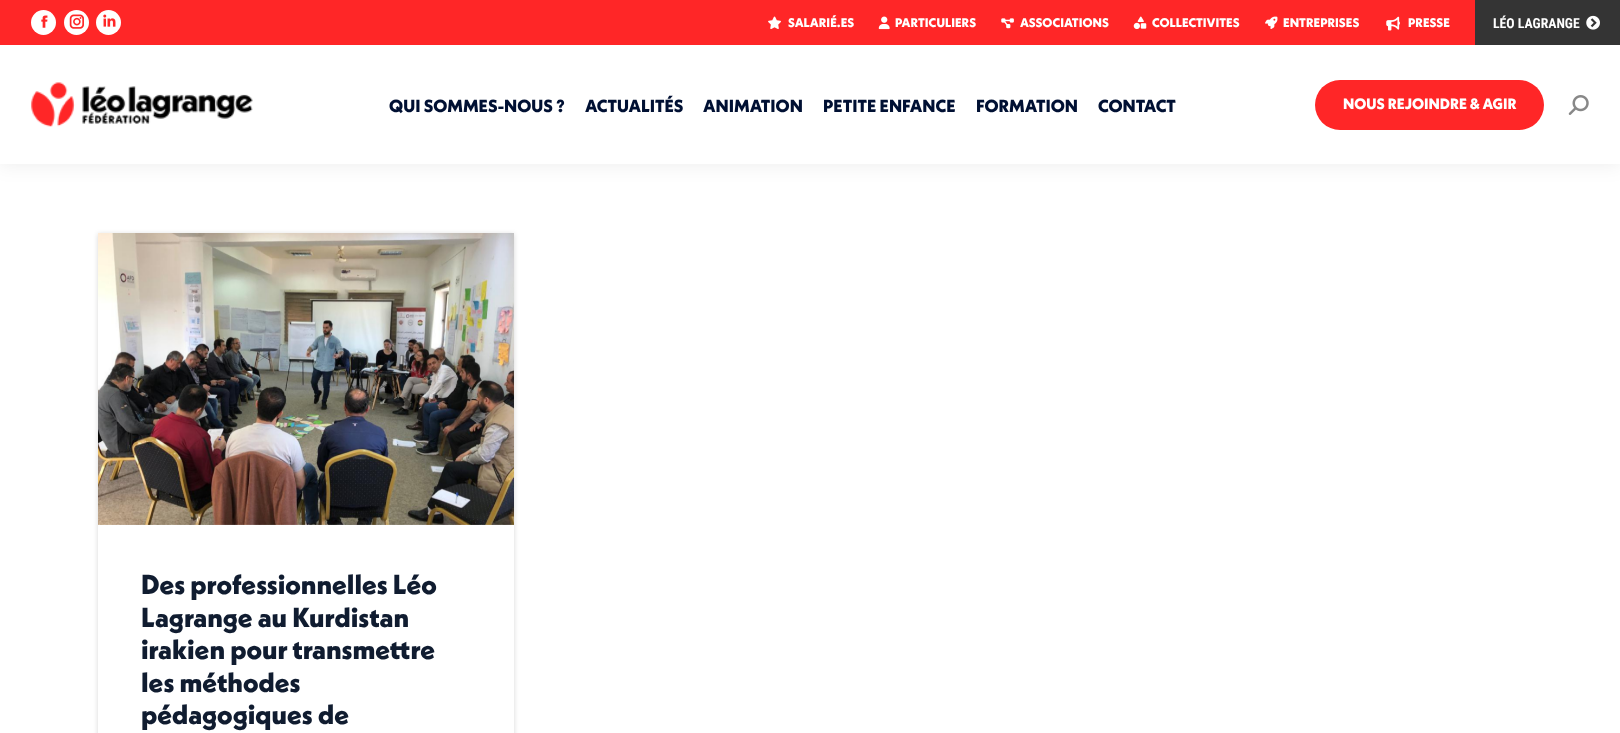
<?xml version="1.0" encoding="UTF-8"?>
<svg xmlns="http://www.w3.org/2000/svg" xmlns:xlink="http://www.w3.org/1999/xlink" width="1620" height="733">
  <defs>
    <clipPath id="clip1"><path d="M 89 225 h 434 v 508 h -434 z m 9 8 h 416 v 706 h -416 z" clip-rule="evenodd" /></clipPath>
  </defs>
  <rect width="100%" height="100%" fill="#ffffff" />
  <rect x="-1" y="-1" width="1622" height="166" fill="#000000" fill-opacity="0.07" filter="blur(9.5px)" />
  <rect y="45" width="1620" height="119" fill="#ffffff" />
  <rect width="1475" height="45" fill="#ff2627" />
  <circle cx="43.5" cy="22.5" r="12.5" fill="#ffffff" />
  <image x="41" y="15" width="7" height="13" xlink:href="image1.png" />
  <circle cx="76.5" cy="22.5" r="12.5" fill="#ffffff" />
  <image x="69" y="14" width="15" height="15" xlink:href="image2.png" />
  <circle cx="108.5" cy="22.5" r="12.5" fill="#ffffff" />
  <image x="103" y="14" width="13" height="13" xlink:href="image3.png" />
  <image x="768" y="16" width="13" height="13" xlink:href="image4.png" />
  <image x="878" y="16" width="12" height="14" xlink:href="image5.png" />
  <image x="1001" y="18" width="13" height="11" xlink:href="image6.png" />
  <image x="1133" y="16" width="14" height="14" xlink:href="image7.png" />
  <image x="1265" y="16" width="13" height="13" xlink:href="image8.png" />
  <image x="1386" y="16" width="14" height="15" xlink:href="image9.png" />
  <rect x="1475" width="145" height="45" fill="#343434" />
  <image x="1586" y="15" width="14" height="15" xlink:href="image10.png" />
  <image x="31" y="82" width="222" height="45" xlink:href="image11.png" />
  <rect x="1315" y="80" width="229" height="50" rx="25" fill="#ff2627" />
  <image x="1568" y="95" width="21" height="20" xlink:href="image12.png" />
  <g clip-path="url(#clip1)">
    <rect x="98" y="234" width="416" height="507" fill="#000000" fill-opacity="0.16" filter="blur(2.5px)" />
  </g>
  <image x="98" y="233" width="416" height="292" xlink:href="image13.png" />
  <text x="788" y="27" style="font-family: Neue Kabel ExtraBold; font-size: 12.5px; font-weight: 800; fill: #ffffff">SALARIÉ.ES</text>
  <text x="895" y="27" style="font-family: Neue Kabel ExtraBold; font-size: 12.5px; font-weight: 800; fill: #ffffff">PARTICULIERS</text>
  <text x="1020" y="27" style="font-family: Neue Kabel ExtraBold; font-size: 12.5px; font-weight: 800; fill: #ffffff">ASSOCIATIONS</text>
  <text x="1152" y="27" style="font-family: Neue Kabel ExtraBold; font-size: 12.5px; font-weight: 800; fill: #ffffff">COLLECTIVITES</text>
  <text x="1283" y="27" style="font-family: Neue Kabel ExtraBold; font-size: 12.5px; font-weight: 800; fill: #ffffff">ENTREPRISES</text>
  <text x="1408" y="27" style="font-family: Neue Kabel ExtraBold; font-size: 12.5px; font-weight: 800; fill: #ffffff">PRESSE</text>
  <text x="1493" y="28" style="font-family: Roboto Condensed; font-size: 13.75px; font-weight: bold; fill: #ffffff">LÉO LAGRANGE</text>
  <text x="389" y="112" style="font-family: Neue Kabel ExtraBold; font-size: 17.5px; font-weight: 800; fill: #001033">QUI SOMMES-NOUS ?</text>
  <text x="585" y="112" style="font-family: Neue Kabel ExtraBold; font-size: 17.5px; font-weight: 800; fill: #001033">ACTUALITÉS</text>
  <text x="703" y="112" style="font-family: Neue Kabel ExtraBold; font-size: 17.5px; font-weight: 800; fill: #001033">ANIMATION</text>
  <text x="823" y="112" style="font-family: Neue Kabel ExtraBold; font-size: 17.5px; font-weight: 800; fill: #001033">PETITE ENFANCE</text>
  <text x="976" y="112" style="font-family: Neue Kabel ExtraBold; font-size: 17.5px; font-weight: 800; fill: #001033">FORMATION</text>
  <text x="1098" y="112" style="font-family: Neue Kabel ExtraBold; font-size: 17.5px; font-weight: 800; fill: #001033">CONTACT</text>
  <text x="1343" y="109" style="font-family: Neue Kabel ExtraBold; font-size: 15px; font-weight: 800; fill: #ffffff">NOUS REJOINDRE &amp; AGIR</text>
  <text x="141" y="594" style="font-family: Neue Kabel ExtraBold; font-size: 27.5px; font-weight: 800; fill: #101c30">Des professionnelles Léo</text>
  <text x="141" y="627" style="font-family: Neue Kabel ExtraBold; font-size: 27.5px; font-weight: 800; fill: #101c30">Lagrange au Kurdistan</text>
  <text x="141" y="659" style="font-family: Neue Kabel ExtraBold; font-size: 27.5px; font-weight: 800; fill: #101c30">irakien pour transmettre</text>
  <text x="141" y="692" style="font-family: Neue Kabel ExtraBold; font-size: 27.5px; font-weight: 800; fill: #101c30">les méthodes</text>
  <text x="141" y="724" style="font-family: Neue Kabel ExtraBold; font-size: 27.5px; font-weight: 800; fill: #101c30">pédagogiques de</text>
</svg>
